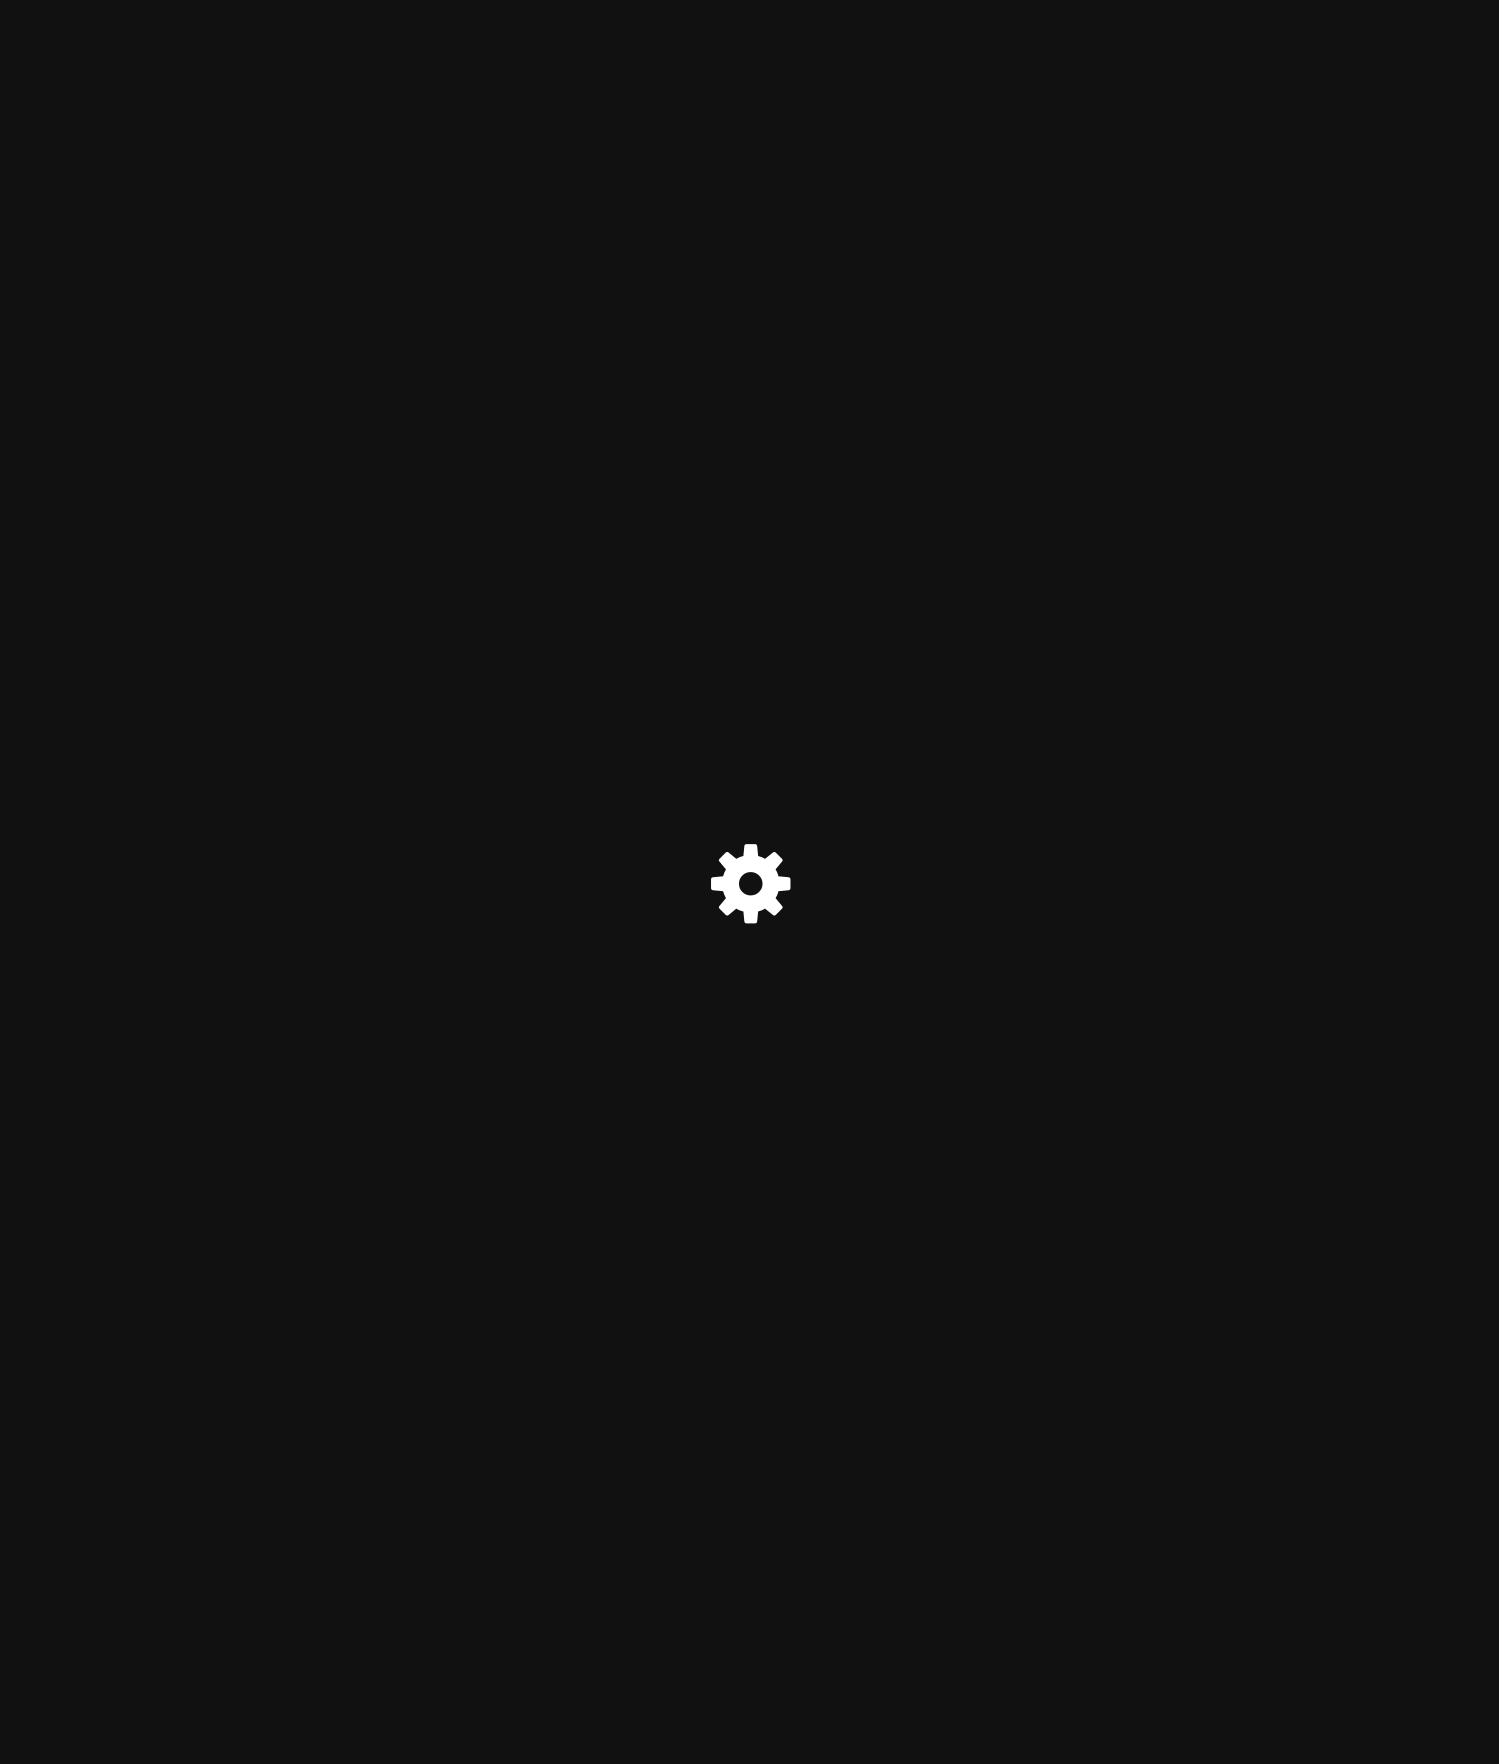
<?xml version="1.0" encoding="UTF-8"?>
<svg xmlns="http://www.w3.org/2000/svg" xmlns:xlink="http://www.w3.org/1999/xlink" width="1499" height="1764">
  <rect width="100%" height="100%" fill="#111111" />
  <image x="711" y="844" width="80" height="80" xlink:href="image1.png" />
</svg>
